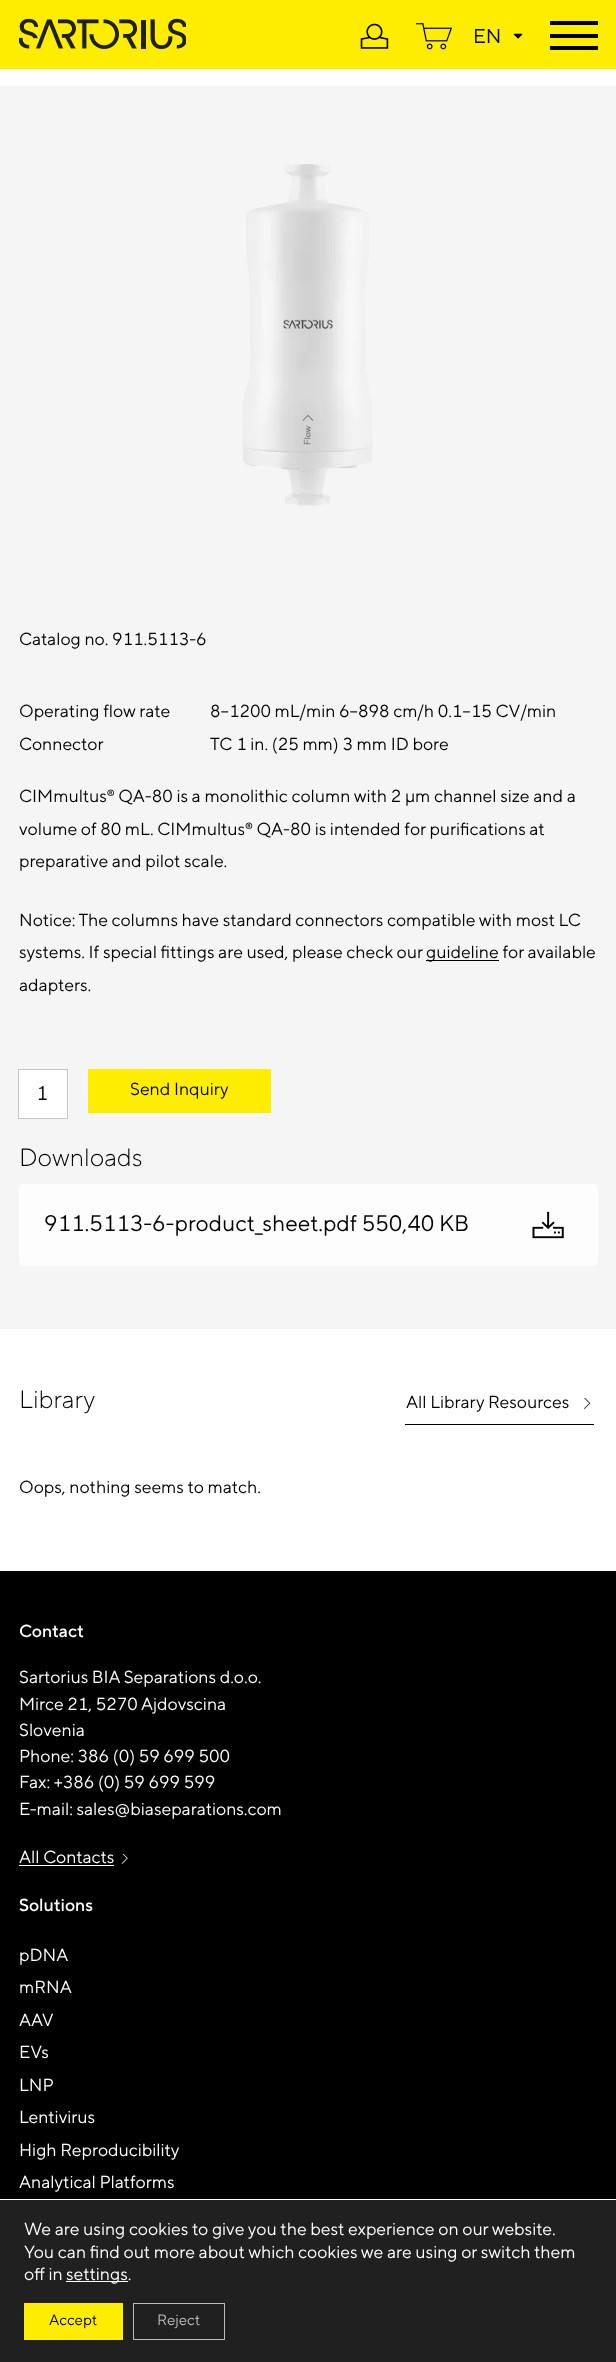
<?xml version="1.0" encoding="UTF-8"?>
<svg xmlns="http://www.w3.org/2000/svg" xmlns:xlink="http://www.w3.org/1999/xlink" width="616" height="2362">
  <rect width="100%" height="100%" fill="#f5f5f5" />
  <rect width="616" height="69" fill="#ffed00" />
  <image x="19" y="18" width="167" height="32" xlink:href="image1.png" />
  <rect x="550" y="21" width="48" height="4" fill="#000000" />
  <rect x="550" y="34" width="48" height="4" fill="#000000" />
  <rect x="550" y="46" width="48" height="4" fill="#000000" />
  <image x="360" y="23" width="29" height="26" xlink:href="image2.png" />
  <image x="416" y="23" width="37" height="27" xlink:href="image3.png" />
  <image x="513" y="33" width="10" height="6" xlink:href="image4.png" />
  <rect y="69" width="616" height="17" fill="#ffffff" />
  <image x="242" y="164" width="131" height="342" xlink:href="image5.png" />
  <rect x="426" y="960" width="73" height="1" fill="#000000" />
  <rect x="18.5" y="1069.5" width="49" height="49" fill="#ffffff" stroke="#c6c6c6" />
  <rect x="88" y="1069" width="183" height="44" fill="#ffed00" />
  <rect x="19" y="1184" width="579" height="82" rx="5" fill="#fdfdfd" />
  <image x="532" y="1211" width="32" height="28" xlink:href="image6.png" />
  <rect y="1329" width="616" height="242" fill="#ffffff" />
  <image x="584" y="1398" width="7" height="11" xlink:href="image7.png" />
  <rect x="405" y="1424" width="189" height="1" fill="#000000" />
  <rect y="1571" width="616" height="628" fill="#000000" />
  <rect x="19" y="1865" width="95" height="1" fill="#ffffff" />
  <image x="121" y="1854" width="7" height="10" xlink:href="image8.png" />
  <rect y="2200" width="616" height="162" fill="#202020" />
  <rect y="2199" width="616" height="1" fill="#ffffff" />
  <rect x="66" y="2281" width="62" height="1" fill="#ffffff" />
  <rect x="24" y="2303" width="99" height="37" fill="#ffed00" />
  <rect x="133.5" y="2303.5" width="91" height="36" fill="none" stroke="#bcbcbc" />
  <text x="473" y="43" style="font-family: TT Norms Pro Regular; font-size: 20px; fill: #000000">EN</text>
  <text x="19" y="645" style="font-family: TT Norms Pro Regular; font-size: 17.5px; fill: #000000">Catalog no. 911.5113-6</text>
  <text x="19" y="717" style="font-family: TT Norms Pro Regular; font-size: 17.5px; fill: #000000">Operating flow rate</text>
  <text x="210" y="717" style="font-family: TT Norms Pro Regular; font-size: 17.5px; fill: #000000">8–1200 mL/min 6–898 cm/h 0.1–15 CV/min</text>
  <text x="19" y="750" style="font-family: TT Norms Pro Regular; font-size: 17.5px; fill: #000000">Connector</text>
  <text x="210" y="750" style="font-family: TT Norms Pro Regular; font-size: 17.5px; fill: #000000">TC 1 in. (25 mm) 3 mm ID bore</text>
  <text x="19" y="802" style="font-family: TT Norms Pro Regular; font-size: 17.5px; fill: #000000">CIMmultus® QA-80 is a monolithic column with 2 μm channel size and a</text>
  <text x="19" y="835" style="font-family: TT Norms Pro Regular; font-size: 17.5px; fill: #000000">volume of 80 mL. CIMmultus® QA-80 is intended for purifications at</text>
  <text x="19" y="867" style="font-family: TT Norms Pro Regular; font-size: 17.5px; fill: #000000">preparative and pilot scale.</text>
  <text x="19" y="926" style="font-family: TT Norms Pro Regular; font-size: 17.5px; fill: #000000">Notice: The columns have standard connectors compatible with most LC</text>
  <text x="19" y="958" style="font-family: TT Norms Pro Regular; font-size: 17.5px; fill: #000000">systems. If special fittings are used, please check our</text>
  <text x="426" y="958" style="font-family: TT Norms Pro Regular; font-size: 17.5px; fill: #000000">guideline for available</text>
  <text x="19" y="991" style="font-family: TT Norms Pro Regular; font-size: 17.5px; fill: #000000">adapters.</text>
  <text x="36" y="1100" style="font-family: TT Norms Pro Regular; font-size: 20px; fill: #000000">1</text>
  <text x="130" y="1095" style="font-family: TT Norms Pro Regular; font-size: 17.5px; fill: #000000">Send Inquiry</text>
  <text x="19" y="1166" style="font-family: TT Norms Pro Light; font-size: 25px; font-weight: 300; fill: #000000">Downloads</text>
  <text x="44" y="1231" style="font-family: TT Norms Pro Regular; font-size: 22.5px; fill: #000000">911.5113-6-product_sheet.pdf 550,40 KB</text>
  <text x="19" y="1408" style="font-family: TT Norms Pro Light; font-size: 25px; font-weight: 300; fill: #000000">Library</text>
  <text x="406" y="1408" style="font-family: TT Norms Pro Regular; font-size: 17.5px; fill: #000000">All Library Resources</text>
  <text x="19" y="1493" style="font-family: TT Norms Pro Regular; font-size: 17.5px; fill: #000000">Oops, nothing seems to match.</text>
  <text x="19" y="1637" style="font-family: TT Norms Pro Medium; font-size: 17.5px; font-weight: 500; fill: #ffffff">Contact</text>
  <text x="19" y="1683" style="font-family: TT Norms Pro Regular; font-size: 17.5px; fill: #ffffff">Sartorius BIA Separations d.o.o.</text>
  <text x="19" y="1710" style="font-family: TT Norms Pro Regular; font-size: 17.5px; fill: #ffffff">Mirce 21, 5270 Ajdovscina</text>
  <text x="19" y="1736" style="font-family: TT Norms Pro Regular; font-size: 17.5px; fill: #ffffff">Slovenia</text>
  <text x="19" y="1762" style="font-family: TT Norms Pro Regular; font-size: 17.5px; fill: #ffffff">Phone: 386 (0) 59 699 500</text>
  <text x="19" y="1788" style="font-family: TT Norms Pro Regular; font-size: 17.5px; fill: #ffffff">Fax: +386 (0) 59 699 599</text>
  <text x="19" y="1815" style="font-family: TT Norms Pro Regular; font-size: 17.5px; fill: #ffffff">E-mail: sales@biaseparations.com</text>
  <text x="19" y="1863" style="font-family: TT Norms Pro Regular; font-size: 17.5px; fill: #ffffff">All Contacts</text>
  <text x="19" y="1911" style="font-family: TT Norms Pro Medium; font-size: 17.5px; font-weight: 500; fill: #ffffff">Solutions</text>
  <text x="19" y="1961" style="font-family: TT Norms Pro Regular; font-size: 17.5px; fill: #ffffff">pDNA</text>
  <text x="19" y="1993" style="font-family: TT Norms Pro Regular; font-size: 17.5px; fill: #ffffff">mRNA</text>
  <text x="19" y="2026" style="font-family: TT Norms Pro Regular; font-size: 17.5px; fill: #ffffff">AAV</text>
  <text x="19" y="2058" style="font-family: TT Norms Pro Regular; font-size: 17.5px; fill: #ffffff">EVs</text>
  <text x="19" y="2091" style="font-family: TT Norms Pro Regular; font-size: 17.5px; fill: #ffffff">LNP</text>
  <text x="19" y="2123" style="font-family: TT Norms Pro Regular; font-size: 17.5px; fill: #ffffff">Lentivirus</text>
  <text x="19" y="2156" style="font-family: TT Norms Pro Regular; font-size: 17.5px; fill: #ffffff">High Reproducibility</text>
  <text x="19" y="2188" style="font-family: TT Norms Pro Regular; font-size: 17.5px; fill: #ffffff">Analytical Platforms</text>
  <text x="24" y="2235" style="font-family: TT Norms Pro Regular; font-size: 17.5px; fill: #ffffff">We are using cookies to give you the best experience on our website.</text>
  <text x="24" y="2258" style="font-family: TT Norms Pro Regular; font-size: 17.5px; fill: #ffffff">You can find out more about which cookies we are using or switch them</text>
  <text x="24" y="2280" style="font-family: TT Norms Pro Regular; font-size: 17.5px; fill: #ffffff">off in</text>
  <text x="66" y="2280" style="font-family: TT Norms Pro Regular; font-size: 17.5px; fill: #ffffff">settings.</text>
  <text x="49" y="2325" style="font-family: TT Norms Pro Regular; font-size: 15px; fill: #000000">Accept</text>
  <text x="157" y="2325" style="font-family: TT Norms Pro Regular; font-size: 15px; fill: #bcbcbc">Reject</text>
</svg>
